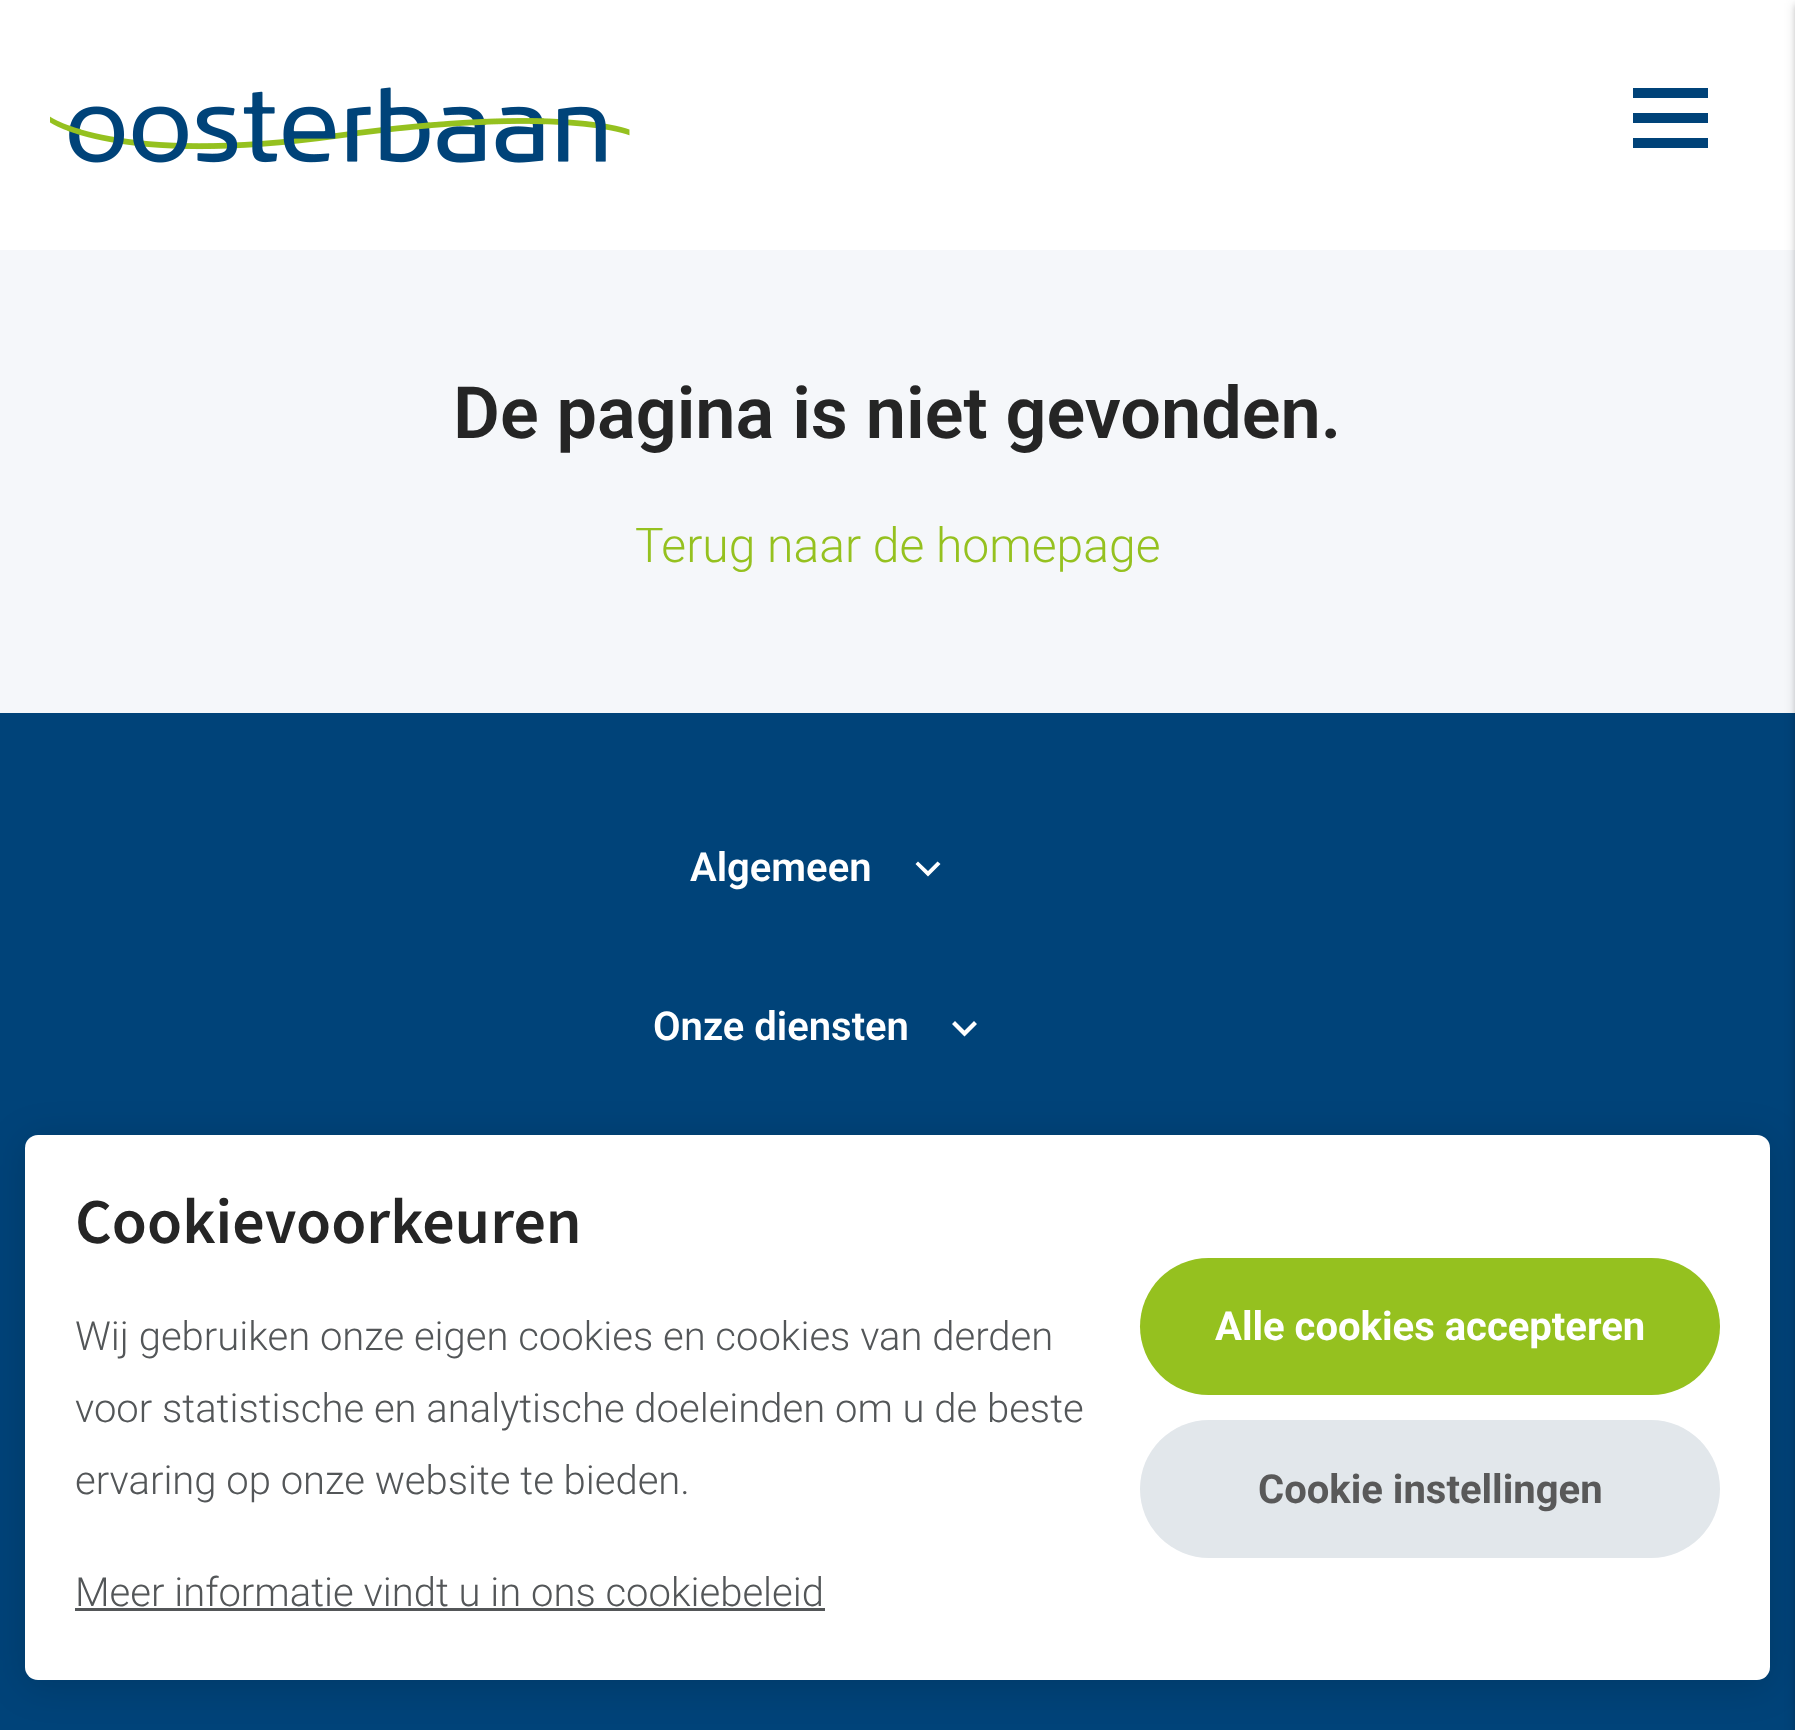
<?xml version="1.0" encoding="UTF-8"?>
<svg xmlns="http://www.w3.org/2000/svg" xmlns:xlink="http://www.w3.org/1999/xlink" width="1795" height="1730">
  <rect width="100%" height="100%" fill="#ffffff" />
  <image x="50" y="87" width="580" height="76" xlink:href="image1.png" />
  <rect x="1633" y="113" width="75" height="10" fill="#004379" />
  <rect x="1633" y="88" width="75" height="10" fill="#004379" />
  <rect x="1633" y="138" width="75" height="10" fill="#004379" />
  <rect y="250" width="1795" height="463" fill="#f5f7fa" />
  <rect y="713" width="1795" height="1017" fill="#004379" />
  <rect x="1795" y="3" width="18" height="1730" fill="#000000" fill-opacity="0.12" filter="blur(6px)" />
  <rect x="1795" y="5" width="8" height="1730" fill="#000000" fill-opacity="0.14" filter="blur(2.5px)" />
  <path d="M 918 861.5 l -2.5 2.5 l 12.5 12.5 l 12.5 -12.5 l -3 -2.5 l -9.5 9.5 z" fill="#ffffff" />
  <path d="M 955 1021 l -3 3 l 12.5 12.5 l 12.5 -12.5 l -3 -3 l -9.5 9.5 z" fill="#ffffff" />
  <rect x="25" y="1140" width="1745" height="545" rx="13" fill="#000000" fill-opacity="0.15" filter="blur(19px)" />
  <rect x="25" y="1135" width="1745" height="545" rx="13" fill="#ffffff" />
  <rect x="75" y="1608" width="750" height="3" fill="#535658" />
  <rect x="1140" y="1258" width="580" height="137" rx="68.5" fill="#95c11f" />
  <rect x="1140" y="1420" width="580" height="138" rx="69" fill="#e2e7eb" />
  <text x="453" y="438" style="font-family: Roboto; font-size: 72px; font-weight: 600; fill: #252525">De pagina is niet gevonden.</text>
  <text x="635" y="562" style="font-family: Roboto; font-size: 48px; font-weight: 300; fill: #95c11f">Terug naar de homepage</text>
  <text x="690" y="881" style="font-family: Roboto; font-size: 40px; font-weight: 600; fill: #ffffff">Algemeen</text>
  <text x="653" y="1040" style="font-family: Roboto; font-size: 40px; font-weight: 600; fill: #ffffff">Onze diensten</text>
  <text x="75" y="1243" style="font-family: 'Source Sans 3'; font-size: 64px; font-weight: 600; fill: #252525">Cookievoorkeuren</text>
  <text x="75" y="1350" style="font-family: Roboto; font-size: 40px; font-weight: 300; fill: #535658">Wij gebruiken onze eigen cookies en cookies van derden</text>
  <text x="75" y="1422" style="font-family: Roboto; font-size: 40px; font-weight: 300; fill: #535658">voor statistische en analytische doeleinden om u de beste</text>
  <text x="75" y="1494" style="font-family: Roboto; font-size: 40px; font-weight: 300; fill: #535658">ervaring op onze website te bieden.</text>
  <text x="75" y="1606" style="font-family: Roboto; font-size: 40px; font-weight: 300; fill: #535658">Meer informatie vindt u in ons cookiebeleid</text>
  <text x="1215" y="1340" style="font-family: Roboto; font-size: 40px; font-weight: bold; fill: #ffffff">Alle cookies accepteren</text>
  <text x="1258" y="1503" style="font-family: Roboto; font-size: 40px; font-weight: bold; fill: #595959">Cookie instellingen</text>
</svg>
